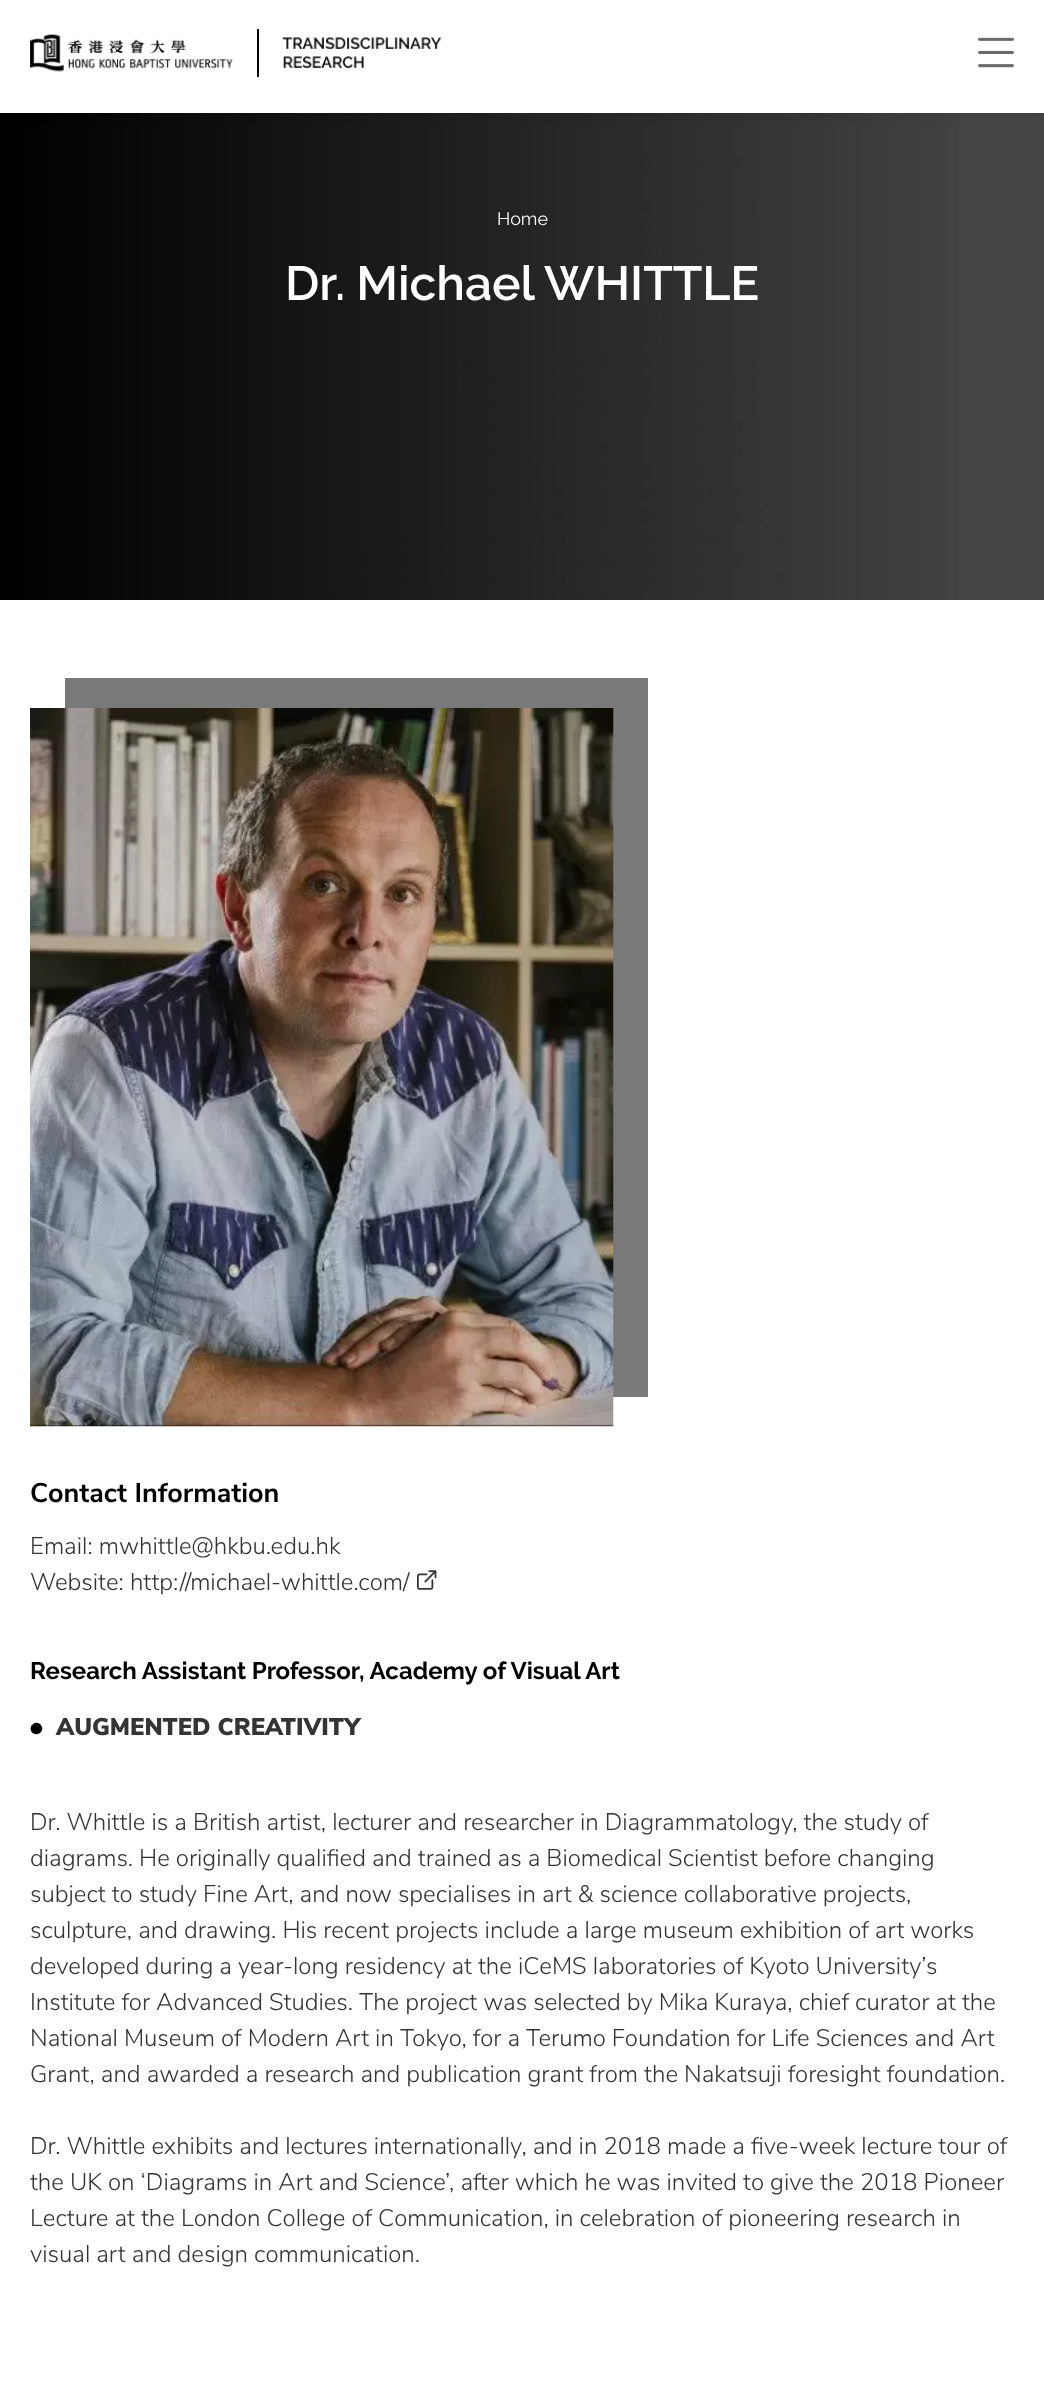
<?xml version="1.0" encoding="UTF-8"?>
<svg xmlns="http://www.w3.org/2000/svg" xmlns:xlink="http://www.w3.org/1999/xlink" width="1044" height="2384">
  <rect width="100%" height="100%" fill="#ffffff" />
  <rect x="6" y="113" width="1038" height="487" fill="#454545" />
  <image x="0" y="113" width="959" height="487" xlink:href="image4.png" />
  <rect y="5" width="1044" height="112" fill="#000000" fill-opacity="0.08" filter="blur(4.5px)" />
  <rect width="1044" height="113" fill="#ffffff" />
  <rect x="257" y="29" width="2" height="48" fill="#000000" />
  <image x="30" y="34" width="203" height="38" xlink:href="image1.png" />
  <image x="282" y="37" width="160" height="32" xlink:href="image2.png" />
  <image x="978" y="37" width="36" height="31" xlink:href="image3.png" />
  <rect x="65" y="678" width="583" height="719" fill="#797979" />
  <image x="30" y="708" width="584" height="719" xlink:href="image5.png" />
  <image x="417" y="1570" width="20" height="20" xlink:href="image6.png" />
  <text x="497" y="225" style="font-family: Raleway; font-size: 18px; fill: #ffffff">Home</text>
  <text x="285" y="300" word-spacing="-1" style="font-family: Raleway; font-size: 48px; font-weight: 600; fill: #ffffff">Dr. Michael</text>
  <text x="544" y="300" style="font-family: Raleway; font-size: 48px; font-weight: 600; fill: #ffffff">WHITTLE</text>
  <text x="30" y="1502" style="font-family: Nunito Sans; font-size: 27px; font-weight: bold; fill: #000000">Contact Information</text>
  <text x="30" y="1554" style="font-family: Nunito Sans; font-size: 24px; font-weight: 300; fill: #343434">Email: mwhittle@hkbu.edu.hk</text>
  <text x="30" y="1590" style="font-family: Nunito Sans; font-size: 24px; font-weight: 300; fill: #343434">Website: http://michael-whittle.com/</text>
  <text x="30" y="1679" style="font-family: Raleway; font-size: 24px; font-weight: bold; fill: #000000">Research Assistant Professor, Academy of Visual Art</text>
  <text x="28" y="1737" style="font-family: Nunito Sans; font-size: 32px; font-weight: 900; fill: #000000">•</text>
  <text x="56" y="1735" style="font-family: Nunito Sans; font-size: 24px; font-weight: 900; fill: #343434">AUGMENTED CREATIVITY</text>
  <text x="30" y="1830" style="font-family: Nunito Sans; font-size: 24px; font-weight: 300; fill: #343434">Dr. Whittle is a British artist, lecturer and researcher in Diagrammatology, the study of</text>
  <text x="30" y="1866" style="font-family: Nunito Sans; font-size: 24px; font-weight: 300; fill: #343434">diagrams. He originally qualified and trained as a Biomedical Scientist before changing</text>
  <text x="30" y="1902" style="font-family: Nunito Sans; font-size: 24px; font-weight: 300; fill: #343434">subject to study Fine Art, and now specialises in art &amp; science collaborative projects,</text>
  <text x="30" y="1938" style="font-family: Nunito Sans; font-size: 24px; font-weight: 300; fill: #343434">sculpture, and drawing. His recent projects include a large museum exhibition of art works</text>
  <text x="30" y="1974" style="font-family: Nunito Sans; font-size: 24px; font-weight: 300; fill: #343434">developed during a year-long residency at the iCeMS laboratories of Kyoto University’s</text>
  <text x="30" y="2010" style="font-family: Nunito Sans; font-size: 24px; font-weight: 300; fill: #343434">Institute for Advanced Studies. The project was selected by Mika Kuraya, chief curator at the</text>
  <text x="30" y="2046" style="font-family: Nunito Sans; font-size: 24px; font-weight: 300; fill: #343434">National Museum of Modern Art in Tokyo, for a Terumo Foundation for Life Sciences and Art</text>
  <text x="30" y="2082" style="font-family: Nunito Sans; font-size: 24px; font-weight: 300; fill: #343434">Grant, and awarded a research and publication grant from the Nakatsuji foresight foundation.</text>
  <text x="30" y="2154" style="font-family: Nunito Sans; font-size: 24px; font-weight: 300; fill: #343434">Dr. Whittle exhibits and lectures internationally, and in 2018 made a five-week lecture tour of</text>
  <text x="30" y="2190" style="font-family: Nunito Sans; font-size: 24px; font-weight: 300; fill: #343434">the UK on ‘Diagrams in Art and Science’, after which he was invited to give the 2018 Pioneer</text>
  <text x="30" y="2226" style="font-family: Nunito Sans; font-size: 24px; font-weight: 300; fill: #343434">Lecture at the London College of Communication, in celebration of pioneering research in</text>
  <text x="30" y="2262" style="font-family: Nunito Sans; font-size: 24px; font-weight: 300; fill: #343434">visual art and design communication.</text>
</svg>
